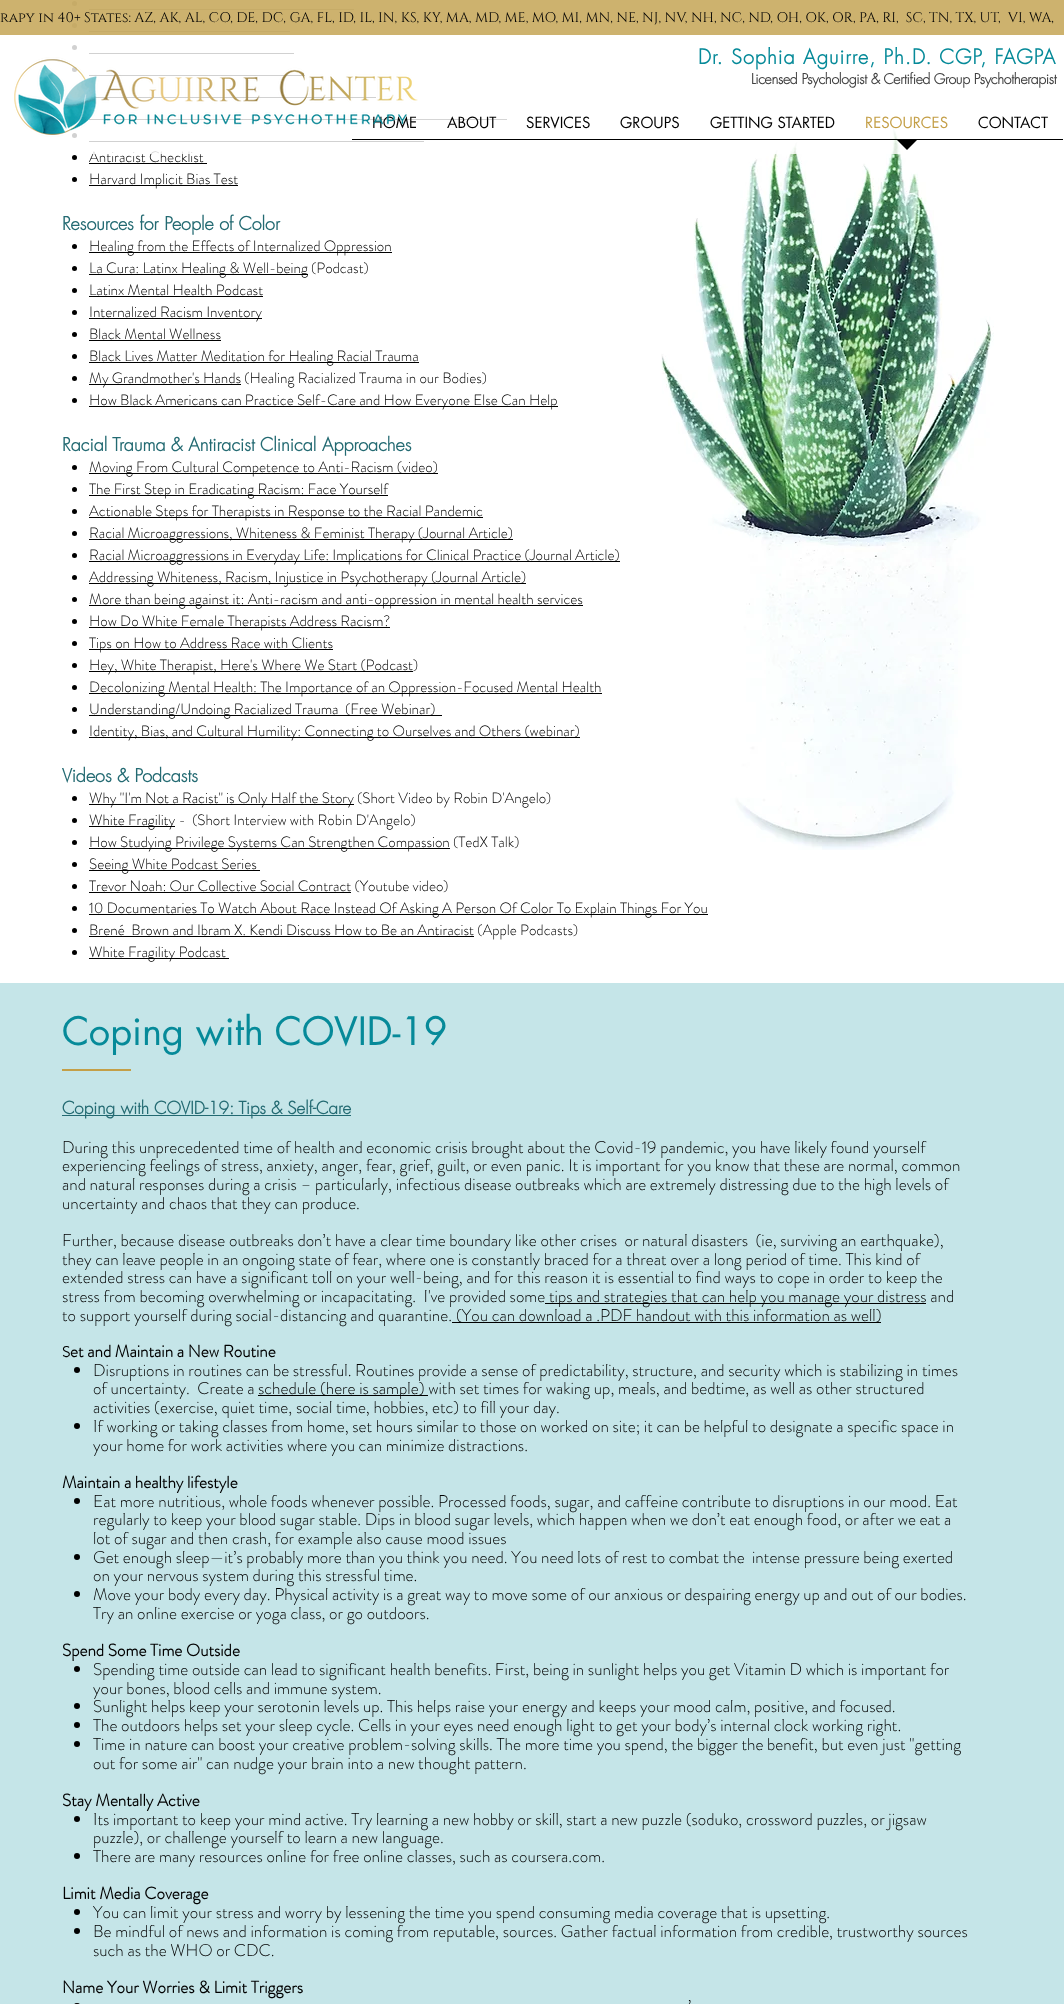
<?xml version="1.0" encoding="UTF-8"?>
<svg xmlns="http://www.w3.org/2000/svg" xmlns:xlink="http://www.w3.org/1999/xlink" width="1064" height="2004">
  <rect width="100%" height="100%" fill="#ffffff" />
  <circle cx="74.5" cy="3.5" r="2.5" fill="#000000" />
  <rect x="89" y="9" width="265" height="1" fill="#000000" />
  <circle cx="74.5" cy="25.5" r="2.5" fill="#000000" />
  <rect x="89" y="31" width="201" height="1" fill="#000000" />
  <circle cx="74.5" cy="47.5" r="2.5" fill="#000000" />
  <rect x="89" y="53" width="205" height="1" fill="#000000" />
  <circle cx="74.5" cy="69.5" r="2.5" fill="#000000" />
  <rect x="89" y="75" width="216" height="1" fill="#000000" />
  <rect x="89" y="97" width="287" height="1" fill="#000000" />
  <rect x="89" y="119" width="418" height="1" fill="#000000" />
  <circle cx="74.5" cy="135.5" r="2.5" fill="#000000" />
  <rect x="89" y="141" width="335" height="1" fill="#000000" />
  <circle cx="74.5" cy="157.5" r="2.5" fill="#000000" />
  <rect x="89" y="163" width="118" height="1" fill="#000000" />
  <circle cx="74.5" cy="179.5" r="2.5" fill="#000000" />
  <rect x="89" y="185" width="149" height="1" fill="#000000" />
  <circle cx="74.5" cy="246.5" r="2.5" fill="#000000" />
  <rect x="89" y="252" width="303" height="1" fill="#000000" />
  <circle cx="74.5" cy="268.5" r="2.5" fill="#000000" />
  <rect x="89" y="274" width="219" height="1" fill="#000000" />
  <circle cx="74.5" cy="290.5" r="2.5" fill="#000000" />
  <rect x="89" y="296" width="174" height="1" fill="#000000" />
  <circle cx="74.5" cy="312.5" r="2.5" fill="#000000" />
  <rect x="89" y="318" width="173" height="1" fill="#000000" />
  <circle cx="74.5" cy="334.5" r="2.5" fill="#000000" />
  <rect x="89" y="340" width="132" height="1" fill="#000000" />
  <circle cx="74.5" cy="356.5" r="2.5" fill="#000000" />
  <rect x="89" y="362" width="330" height="1" fill="#000000" />
  <circle cx="74.5" cy="378.5" r="2.5" fill="#000000" />
  <rect x="89" y="384" width="152" height="1" fill="#000000" />
  <circle cx="74.5" cy="400.5" r="2.5" fill="#000000" />
  <rect x="89" y="406" width="469" height="1" fill="#000000" />
  <circle cx="74.5" cy="467.5" r="2.5" fill="#000000" />
  <rect x="89" y="473" width="349" height="1" fill="#000000" />
  <circle cx="74.5" cy="489.5" r="2.5" fill="#000000" />
  <rect x="89" y="495" width="299" height="1" fill="#000000" />
  <circle cx="74.5" cy="511.5" r="2.5" fill="#000000" />
  <rect x="89" y="517" width="394" height="1" fill="#000000" />
  <circle cx="74.5" cy="533.5" r="2.5" fill="#000000" />
  <rect x="89" y="539" width="424" height="1" fill="#000000" />
  <circle cx="74.5" cy="555.5" r="2.5" fill="#000000" />
  <rect x="89" y="561" width="531" height="1" fill="#000000" />
  <circle cx="74.5" cy="577.5" r="2.5" fill="#000000" />
  <rect x="89" y="583" width="437" height="1" fill="#000000" />
  <circle cx="74.5" cy="599.5" r="2.5" fill="#000000" />
  <rect x="89" y="605" width="494" height="1" fill="#000000" />
  <circle cx="74.5" cy="621.5" r="2.5" fill="#000000" />
  <rect x="89" y="627" width="301" height="1" fill="#000000" />
  <circle cx="74.5" cy="643.5" r="2.5" fill="#000000" />
  <rect x="89" y="649" width="244" height="1" fill="#000000" />
  <circle cx="74.5" cy="665.5" r="2.5" fill="#000000" />
  <rect x="89" y="671" width="324" height="1" fill="#000000" />
  <circle cx="74.5" cy="687.5" r="2.5" fill="#000000" />
  <rect x="89" y="693" width="513" height="1" fill="#000000" />
  <circle cx="74.5" cy="709.5" r="2.5" fill="#000000" />
  <rect x="89" y="715" width="353" height="1" fill="#000000" />
  <circle cx="74.5" cy="731.5" r="2.5" fill="#000000" />
  <rect x="89" y="737" width="491" height="1" fill="#000000" />
  <circle cx="74.5" cy="798.5" r="2.5" fill="#000000" />
  <rect x="89" y="804" width="265" height="1" fill="#000000" />
  <circle cx="74.5" cy="820.5" r="2.5" fill="#000000" />
  <rect x="89" y="826" width="86" height="1" fill="#000000" />
  <circle cx="74.5" cy="842.5" r="2.5" fill="#000000" />
  <rect x="89" y="848" width="361" height="1" fill="#000000" />
  <circle cx="74.5" cy="864.5" r="2.5" fill="#000000" />
  <rect x="89" y="870" width="171" height="1" fill="#000000" />
  <circle cx="74.5" cy="886.5" r="2.5" fill="#000000" />
  <rect x="89" y="892" width="262" height="1" fill="#000000" />
  <circle cx="74.5" cy="908.5" r="2.5" fill="#000000" />
  <rect x="89" y="914" width="619" height="1" fill="#000000" />
  <circle cx="74.5" cy="930.5" r="2.5" fill="#000000" />
  <rect x="89" y="936" width="385" height="1" fill="#000000" />
  <circle cx="74.5" cy="952.5" r="2.5" fill="#000000" />
  <rect x="89" y="958" width="140" height="1" fill="#000000" />
  <image x="661" y="126" width="333" height="724" xlink:href="image2.png" />
  <rect y="983" width="1064" height="1021" fill="#c5e5e8" />
  <rect x="62" y="1069" width="69" height="2" fill="#c49f47" />
  <rect x="62" y="1115" width="289" height="1" fill="#236a72" />
  <rect x="545" y="1303" width="381" height="1" fill="#000000" />
  <rect x="452" y="1322" width="429" height="1" fill="#000000" />
  <circle cx="77" cy="1370" r="3" fill="#000000" />
  <rect x="258" y="1395" width="170" height="1" fill="#000000" />
  <circle cx="77" cy="1426" r="3" fill="#000000" />
  <circle cx="77" cy="1501" r="3" fill="#000000" />
  <circle cx="77" cy="1557" r="3" fill="#000000" />
  <circle cx="77" cy="1594" r="3" fill="#000000" />
  <circle cx="77" cy="1669" r="3" fill="#000000" />
  <circle cx="77" cy="1706" r="3" fill="#000000" />
  <circle cx="77" cy="1725" r="3" fill="#000000" />
  <circle cx="77" cy="1744" r="3" fill="#000000" />
  <circle cx="77" cy="1819" r="3" fill="#000000" />
  <circle cx="77" cy="1856" r="3" fill="#000000" />
  <circle cx="77" cy="1912" r="3" fill="#000000" />
  <circle cx="77" cy="1931" r="3" fill="#000000" />
  <rect x="74" y="2003" width="6" height="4" rx="3" fill="#000000" />
  <text x="978" y="128" style="font-family: futura; font-size: 15px; fill: #000000">CONTACT</text>
  <text x="89" y="162" style="font-family: 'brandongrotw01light'; font-size: 15px; font-weight: 300; fill: #000000">Antiracist Checklist</text>
  <rect x="72" y="1" width="830" height="153" fill="#ffffff" fill-opacity="0.82" />
  <rect x="352" y="119" width="544" height="20" fill="#ffffff" fill-opacity="0.1" />
  <text x="372" y="128" style="font-family: futura; font-size: 15px; fill: #000000">HOME</text>
  <image x="14" y="57" width="404" height="80" xlink:href="image1.png" />
  <text x="698" y="64" style="font-family: futura; font-size: 20px; font-weight: bold; letter-spacing: 1px; fill: #068a99">Dr. Sophia Aguirre, Ph.D. CGP, FAGPA</text>
  <text x="865" y="128" style="font-family: futura; font-size: 15px; fill: #c49f47">RESOURCES</text>
  <rect x="352" y="139" width="711" height="1" fill="#000000" />
  <path d="M 896 139 h 22 l -11 11 z" fill="#000000" />
  <text x="710" y="128" style="font-family: futura; font-size: 15px; fill: #000000">GETTING STARTED</text>
  <text x="620" y="128" style="font-family: futura; font-size: 15px; fill: #000000">GROUPS</text>
  <text x="526" y="128" style="font-family: futura; font-size: 15px; fill: #000000">SERVICES</text>
  <text x="447" y="128" style="font-family: futura; font-size: 15px; fill: #000000">ABOUT</text>
  <text x="751" y="84" style="font-family: futura; font-size: 14px; font-weight: bold; letter-spacing: -0.28px; fill: #414141">Licensed Psychologist &amp; Certified Group Psychotherapist</text>
  <rect width="1064" height="35" fill="#c4a352" fill-opacity="0.84" />
  <text x="0" y="22" style="font-family: Cinzel; font-size: 14px; fill: #000000" xml:space="preserve">rapy in 40+ States: AZ, AK, AL, CO, DE, DC, GA, FL, ID, IL, IN, KS, KY, MA, MD, ME, MO, MI, MN, NE, NJ, NV, NH, NC, ND, OH, OK, OR, PA, RI,  SC, TN, TX, UT,  VI, WA,</text>
  <text x="89" y="184" style="font-family: 'brandongrotw01light'; font-size: 15px; font-weight: 300; fill: #000000">Harvard Implicit Bias Test</text>
  <text x="62" y="230" style="font-family: futura; font-size: 18px; font-weight: bold; fill: #236a72">Resources for People of Color</text>
  <text x="89" y="251" style="font-family: 'brandongrotw01light'; font-size: 15px; font-weight: 300; fill: #000000">Healing from the Effects of Internalized Oppression</text>
  <text x="89" y="273" style="font-family: 'brandongrotw01light'; font-size: 15px; font-weight: 300; fill: #000000">La Cura: Latinx Healing &amp; Well-being (Podcast)</text>
  <text x="89" y="295" style="font-family: 'brandongrotw01light'; font-size: 15px; font-weight: 300; fill: #000000">Latinx Mental Health Podcast</text>
  <text x="89" y="317" style="font-family: 'brandongrotw01light'; font-size: 15px; font-weight: 300; fill: #000000">Internalized Racism Inventory</text>
  <text x="89" y="339" style="font-family: 'brandongrotw01light'; font-size: 15px; font-weight: 300; fill: #000000">Black Mental Wellness</text>
  <text x="89" y="361" style="font-family: 'brandongrotw01light'; font-size: 15px; font-weight: 300; fill: #000000">Black Lives Matter Meditation for Healing Racial Trauma</text>
  <text x="89" y="383" style="font-family: 'brandongrotw01light'; font-size: 15px; font-weight: 300; fill: #000000">My Grandmother's Hands (Healing Racialized Trauma in our Bodies)</text>
  <text x="89" y="405" style="font-family: 'brandongrotw01light'; font-size: 15px; font-weight: 300; fill: #000000">How Black Americans can Practice Self-Care and How Everyone Else Can Help</text>
  <text x="62" y="451" style="font-family: futura; font-size: 18px; font-weight: bold; fill: #236a72">Racial Trauma &amp; Antiracist Clinical Approaches</text>
  <text x="89" y="472" style="font-family: 'brandongrotw01light'; font-size: 15px; font-weight: 300; fill: #000000">Moving From Cultural Competence to Anti-Racism (video)</text>
  <text x="89" y="494" style="font-family: 'brandongrotw01light'; font-size: 15px; font-weight: 300; fill: #000000">The First Step in Eradicating Racism: Face Yourself</text>
  <text x="89" y="516" style="font-family: 'brandongrotw01light'; font-size: 15px; font-weight: 300; fill: #000000">Actionable Steps for Therapists in Response to the Racial Pandemic</text>
  <text x="89" y="538" style="font-family: 'brandongrotw01light'; font-size: 15px; font-weight: 300; fill: #000000">Racial Microaggressions, Whiteness &amp; Feminist Therapy (Journal Article)</text>
  <text x="89" y="560" style="font-family: 'brandongrotw01light'; font-size: 15px; font-weight: 300; fill: #000000">Racial Microaggressions in Everyday Life: Implications for Clinical Practice (Journal Article)</text>
  <text x="89" y="582" style="font-family: 'brandongrotw01light'; font-size: 15px; font-weight: 300; fill: #000000">Addressing Whiteness, Racism, Injustice in Psychotherapy (Journal Article)</text>
  <text x="89" y="604" style="font-family: 'brandongrotw01light'; font-size: 15px; font-weight: 300; fill: #000000">More than being against it: Anti-racism and anti-oppression in mental health services</text>
  <text x="89" y="626" style="font-family: 'brandongrotw01light'; font-size: 15px; font-weight: 300; fill: #000000">How Do White Female Therapists Address Racism?</text>
  <text x="89" y="648" style="font-family: 'brandongrotw01light'; font-size: 15px; font-weight: 300; fill: #000000">Tips on How to Address Race with Clients</text>
  <text x="89" y="670" style="font-family: 'brandongrotw01light'; font-size: 15px; font-weight: 300; fill: #000000">Hey, White Therapist, Here's Where We Start (Podcast)</text>
  <text x="89" y="692" style="font-family: 'brandongrotw01light'; font-size: 15px; font-weight: 300; fill: #000000">Decolonizing Mental Health: The Importance of an Oppression-Focused Mental Health</text>
  <text x="89" y="714" style="font-family: 'brandongrotw01light'; font-size: 15px; font-weight: 300; fill: #000000" xml:space="preserve">Understanding/Undoing Racialized Trauma  (Free Webinar)</text>
  <text x="89" y="736" style="font-family: 'brandongrotw01light'; font-size: 15px; font-weight: 300; fill: #000000">Identity, Bias, and Cultural Humility: Connecting to Ourselves and Others (webinar)</text>
  <text x="62" y="782" style="font-family: futura; font-size: 18px; font-weight: bold; fill: #236a72">Videos &amp; Podcasts</text>
  <text x="89" y="803" style="font-family: 'brandongrotw01light'; font-size: 15px; font-weight: 300; fill: #000000">Why "I'm Not a Racist" is Only Half the Story (Short Video by Robin D'Angelo)</text>
  <text x="89" y="825" style="font-family: 'brandongrotw01light'; font-size: 15px; font-weight: 300; fill: #000000" xml:space="preserve">White Fragility -  (Short Interview with Robin D'Angelo)</text>
  <text x="89" y="847" style="font-family: 'brandongrotw01light'; font-size: 15px; font-weight: 300; fill: #000000">How Studying Privilege Systems Can Strengthen Compassion (TedX Talk)</text>
  <text x="89" y="869" style="font-family: 'brandongrotw01light'; font-size: 15px; font-weight: 300; fill: #000000">Seeing White Podcast Series</text>
  <text x="89" y="891" style="font-family: 'brandongrotw01light'; font-size: 15px; font-weight: 300; fill: #000000">Trevor Noah: Our Collective Social Contract (Youtube video)</text>
  <text x="89" y="913" style="font-family: 'brandongrotw01light'; font-size: 15px; font-weight: 300; fill: #000000">10 Documentaries To Watch About Race Instead Of Asking A Person Of Color To Explain Things For You</text>
  <text x="89" y="935" style="font-family: 'brandongrotw01light'; font-size: 15px; font-weight: 300; fill: #000000" xml:space="preserve">Brené  Brown and Ibram X. Kendi Discuss How to Be an Antiracist (Apple Podcasts)</text>
  <text x="89" y="957" style="font-family: 'brandongrotw01light'; font-size: 15px; font-weight: 300; fill: #000000">White Fragility Podcast</text>
  <text x="62" y="1045" style="font-family: futura; font-size: 38px; fill: #068a99">Coping with COVID-19</text>
  <text x="62" y="1114" style="font-family: futura; font-size: 17px; font-weight: bold; fill: #236a72">Coping with COVID-19: Tips &amp; Self-Care</text>
  <text x="62" y="1153" style="font-family: 'brandongrotw01light'; font-size: 17px; font-weight: 300; fill: #000000">During this unprecedented time of health and economic crisis brought about the Covid-19 pandemic, you have likely found yourself</text>
  <text x="62" y="1171" style="font-family: 'brandongrotw01light'; font-size: 17px; font-weight: 300; fill: #000000">experiencing feelings of stress, anxiety, anger, fear, grief, guilt, or even panic. It is important for you know that these are normal, common</text>
  <text x="62" y="1190" style="font-family: 'brandongrotw01light'; font-size: 17px; font-weight: 300; fill: #000000">and natural responses during a crisis – particularly, infectious disease outbreaks which are extremely distressing due to the high levels of</text>
  <text x="62" y="1209" style="font-family: 'brandongrotw01light'; font-size: 17px; font-weight: 300; fill: #000000">uncertainty and chaos that they can produce.</text>
  <text x="62" y="1246" style="font-family: 'brandongrotw01light'; font-size: 17px; font-weight: 300; fill: #000000" xml:space="preserve">Further, because disease outbreaks don’t have a clear time boundary like other crises  or natural disasters  (ie, surviving an earthquake),</text>
  <text x="62" y="1265" style="font-family: 'brandongrotw01light'; font-size: 17px; font-weight: 300; fill: #000000">they can leave people in an ongoing state of fear, where one is constantly braced for a threat over a long period of time. This kind of</text>
  <text x="62" y="1283" style="font-family: 'brandongrotw01light'; font-size: 17px; font-weight: 300; fill: #000000">extended stress can have a significant toll on your well-being, and for this reason it is essential to find ways to cope in order to keep the</text>
  <text x="62" y="1302" style="font-family: 'brandongrotw01light'; font-size: 17px; font-weight: 300; fill: #000000" xml:space="preserve">stress from becoming overwhelming or incapacitating.  I've provided some</text>
  <text x="549" y="1302" style="font-family: 'brandongrotw01light'; font-size: 17px; font-weight: 300; fill: #000000">tips and strategies that can help you manage your distress and</text>
  <text x="62" y="1321" style="font-family: 'brandongrotw01light'; font-size: 17px; font-weight: 300; fill: #000000">to support yourself during social-distancing and quarantine.</text>
  <text x="456" y="1321" style="font-family: 'brandongrotw01light'; font-size: 17px; font-weight: 300; fill: #000000">(You can download a .PDF handout with this information as well)</text>
  <text x="62" y="1357" style="font-family: 'brandongrotw01light'; font-size: 15px; font-weight: bold; fill: #000000">S</text>
  <text x="70" y="1357" style="font-family: 'brandongrotw01light'; font-size: 17px; font-weight: bold; fill: #000000">et and Maintain a New Routine</text>
  <text x="93" y="1376" style="font-family: 'brandongrotw01light'; font-size: 17px; font-weight: 300; fill: #000000">Disruptions in routines can be stressful. Routines provide a sense of predictability, structure, and security which is stabilizing in times</text>
  <text x="93" y="1394" style="font-family: 'brandongrotw01light'; font-size: 17px; font-weight: 300; fill: #000000" xml:space="preserve">of uncertainty.  Create a</text>
  <text x="258" y="1394" style="font-family: 'brandongrotw01light'; font-size: 17px; font-weight: 300; fill: #000000">schedule (here is sample) with set times for waking up, meals, and bedtime, as well as other structured</text>
  <text x="93" y="1413" style="font-family: 'brandongrotw01light'; font-size: 17px; font-weight: 300; fill: #000000">activities (exercise, quiet time, social time, hobbies, etc) to fill your day.</text>
  <text x="93" y="1432" style="font-family: 'brandongrotw01light'; font-size: 17px; font-weight: 300; fill: #000000">If working or taking classes from home, set hours similar to those on worked on site; it can be helpful to designate a specific space in</text>
  <text x="93" y="1451" style="font-family: 'brandongrotw01light'; font-size: 17px; font-weight: 300; fill: #000000">your home for work activities where you can minimize distractions.</text>
  <text x="62" y="1488" style="font-family: 'brandongrotw01light'; font-size: 17px; font-weight: bold; fill: #000000">Maintain a healthy lifestyle</text>
  <text x="93" y="1507" style="font-family: 'brandongrotw01light'; font-size: 17px; font-weight: 300; fill: #000000">Eat more nutritious, whole foods whenever possible. Processed foods, sugar, and caffeine contribute to disruptions in our mood. Eat</text>
  <text x="93" y="1525" style="font-family: 'brandongrotw01light'; font-size: 17px; font-weight: 300; fill: #000000">regularly to keep your blood sugar stable. Dips in blood sugar levels, which happen when we don’t eat enough food, or after we eat a</text>
  <text x="93" y="1544" style="font-family: 'brandongrotw01light'; font-size: 17px; font-weight: 300; fill: #000000">lot of sugar and then crash, for example also cause mood issues</text>
  <text x="93" y="1563" style="font-family: 'brandongrotw01light'; font-size: 17px; font-weight: 300; fill: #000000" xml:space="preserve">Get enough sleep—it’s probably more than you think you need. You need lots of rest to combat the  intense pressure being exerted</text>
  <text x="93" y="1581" style="font-family: 'brandongrotw01light'; font-size: 17px; font-weight: 300; fill: #000000">on your nervous system during this stressful time.</text>
  <text x="93" y="1600" style="font-family: 'brandongrotw01light'; font-size: 17px; font-weight: 300; fill: #000000">Move your body every day. Physical activity is a great way to move some of our anxious or despairing energy up and out of our bodies.</text>
  <text x="93" y="1619" style="font-family: 'brandongrotw01light'; font-size: 17px; font-weight: 300; fill: #000000">Try an online exercise or yoga class, or go outdoors.</text>
  <text x="62" y="1656" style="font-family: 'brandongrotw01light'; font-size: 17px; font-weight: bold; fill: #000000">Spend Some Time Outside</text>
  <text x="93" y="1675" style="font-family: 'brandongrotw01light'; font-size: 17px; font-weight: 300; fill: #000000">Spending time outside can lead to significant health benefits. First, being in sunlight helps you get Vitamin D which is important for</text>
  <text x="93" y="1694" style="font-family: 'brandongrotw01light'; font-size: 17px; font-weight: 300; fill: #000000">your bones, blood cells and immune system.</text>
  <text x="93" y="1712" style="font-family: 'brandongrotw01light'; font-size: 17px; font-weight: 300; fill: #000000">Sunlight helps keep your serotonin levels up. This helps raise your energy and keeps your mood calm, positive, and focused.</text>
  <text x="93" y="1731" style="font-family: 'brandongrotw01light'; font-size: 17px; font-weight: 300; fill: #000000">The outdoors helps set your sleep cycle. Cells in your eyes need enough light to get your body’s internal clock working right.</text>
  <text x="93" y="1750" style="font-family: 'brandongrotw01light'; font-size: 17px; font-weight: 300; fill: #000000">Time in nature can boost your creative problem-solving skills. The more time you spend, the bigger the benefit, but even just "getting</text>
  <text x="93" y="1769" style="font-family: 'brandongrotw01light'; font-size: 17px; font-weight: 300; fill: #000000">out for some air" can nudge your brain into a new thought pattern.</text>
  <text x="62" y="1806" style="font-family: 'brandongrotw01light'; font-size: 17px; font-weight: bold; fill: #000000">Stay Mentally Active</text>
  <text x="93" y="1825" style="font-family: 'brandongrotw01light'; font-size: 17px; font-weight: 300; fill: #000000">Its important to keep your mind active. Try learning a new hobby or skill, start a new puzzle (soduko, crossword puzzles, or jigsaw</text>
  <text x="93" y="1843" style="font-family: 'brandongrotw01light'; font-size: 17px; font-weight: 300; fill: #000000">puzzle), or challenge yourself to learn a new language.</text>
  <text x="93" y="1862" style="font-family: 'brandongrotw01light'; font-size: 17px; font-weight: 300; fill: #000000">There are many resources online for free online classes, such as coursera.com.</text>
  <text x="62" y="1899" style="font-family: 'brandongrotw01light'; font-size: 17px; font-weight: bold; fill: #000000">Limit Media Coverage</text>
  <text x="93" y="1918" style="font-family: 'brandongrotw01light'; font-size: 17px; font-weight: 300; fill: #000000">You can limit your stress and worry by lessening the time you spend consuming media coverage that is upsetting.</text>
  <text x="93" y="1937" style="font-family: 'brandongrotw01light'; font-size: 17px; font-weight: 300; fill: #000000">Be mindful of news and information is coming from reputable, sources. Gather factual information from credible, trustworthy sources</text>
  <text x="93" y="1956" style="font-family: 'brandongrotw01light'; font-size: 17px; font-weight: 300; fill: #000000">such as the WHO or CDC.</text>
  <text x="62" y="1993" style="font-family: 'brandongrotw01light'; font-size: 17px; font-weight: bold; fill: #000000">Name Your Worries &amp; Limit Triggers</text>
  <text x="688" y="2012" style="font-family: 'brandongrotw01light'; font-size: 17px; font-weight: 300; fill: #000000">’</text>
</svg>
